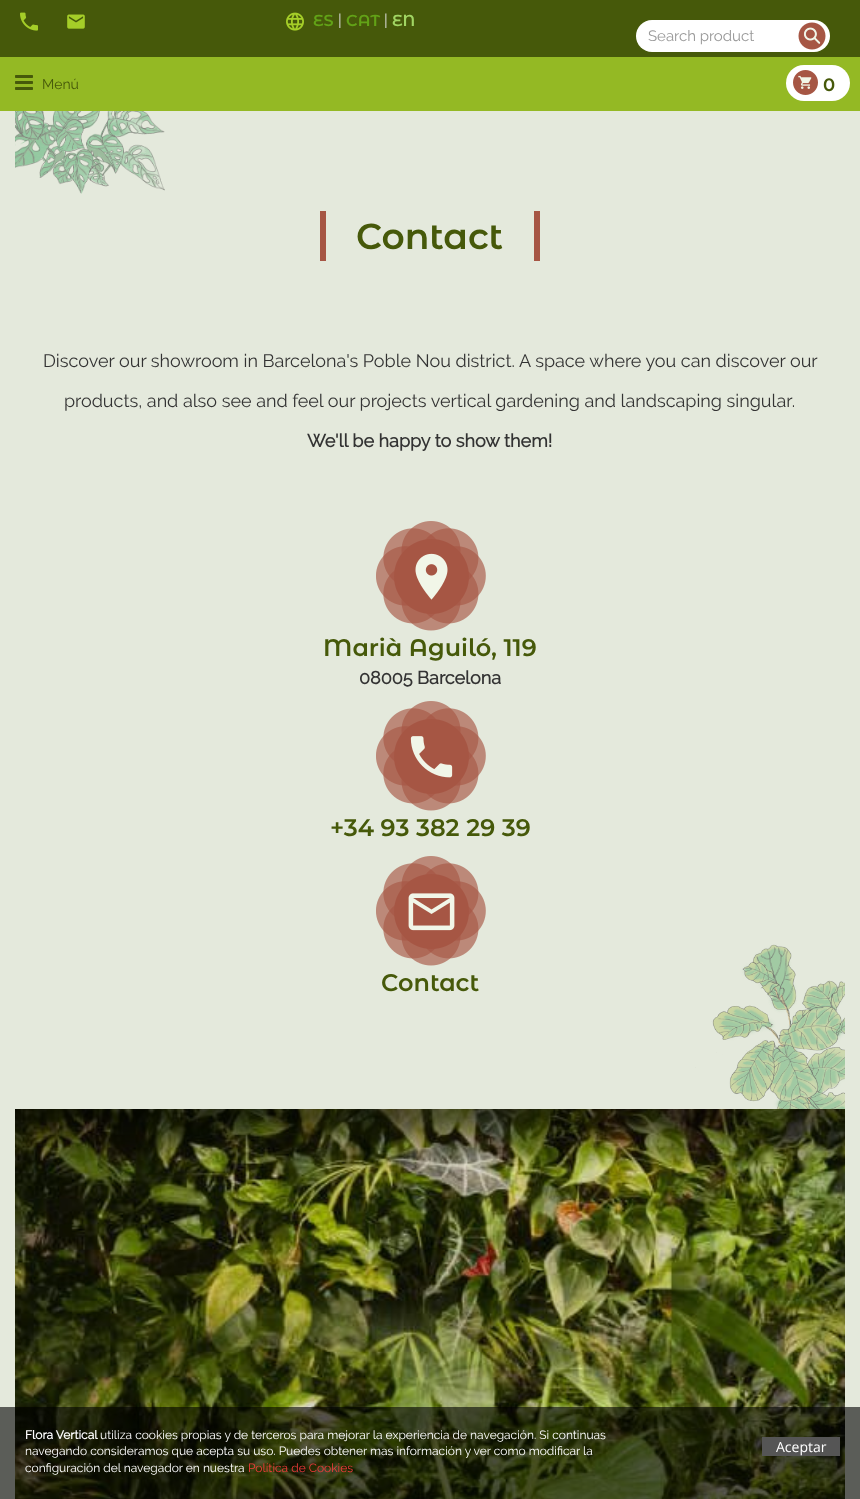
<?xml version="1.0" encoding="UTF-8"?>
<svg xmlns="http://www.w3.org/2000/svg" xmlns:xlink="http://www.w3.org/1999/xlink" width="860" height="1499">
  <rect width="100%" height="100%" fill="#e4e9dc" />
  <rect width="860" height="57" fill="#46590a" />
  <image x="20" y="12" width="18" height="19" xlink:href="image1.png" />
  <image x="67" y="14" width="18" height="15" xlink:href="image2.png" />
  <image x="286" y="12" width="18" height="19" xlink:href="image3.png" />
  <rect x="636" y="20" width="194" height="32" rx="16" fill="#ffffff" />
  <image x="798" y="22" width="28" height="28" xlink:href="image4.png" />
  <rect y="57" width="860" height="54" fill="#94b924" />
  <image x="15" y="75" width="18" height="15" xlink:href="image5.png" />
  <rect x="786" y="65" width="64" height="36" rx="18" fill="#ffffff" />
  <image x="793" y="70" width="25" height="25" xlink:href="image6.png" />
  <image x="15" y="111" width="830" height="998" xlink:href="image7.png" />
  <rect x="534" y="211" width="6" height="50" fill="#a65644" />
  <rect x="320" y="211" width="6" height="50" fill="#a65644" />
  <image x="376" y="521" width="110" height="110" xlink:href="image8.png" />
  <image x="376" y="701" width="110" height="110" xlink:href="image9.png" />
  <image x="376" y="856" width="110" height="110" xlink:href="image10.png" />
  <image x="15" y="1109" width="830" height="390" xlink:href="image11.png" />
  <rect y="1407" width="860" height="92" fill="#000000" fill-opacity="0.6" />
  <rect x="762" y="1437" width="78" height="19" fill="#555555" />
  <text x="313" y="26" style="font-family: Montserrat Alternates; font-size: 16px; font-weight: 600; fill: #62a217">ES</text>
  <text x="338" y="26" style="font-family: Raleway; font-size: 16px; fill: #dddddd">|</text>
  <text x="346" y="26" style="font-family: Montserrat Alternates; font-size: 16px; font-weight: 600; fill: #62a217">CAT</text>
  <text x="384" y="26" style="font-family: Raleway; font-size: 16px; fill: #dddddd">|</text>
  <text x="392" y="26" style="font-family: Montserrat Alternates; font-size: 16px; font-weight: 600; fill: #a1d563">EN</text>
  <text x="648" y="41" style="font-family: Raleway; font-size: 15px; fill: #999999">Search product</text>
  <text x="42" y="89" style="font-family: Raleway; font-size: 14px; fill: #46590a">Menú</text>
  <text x="823" y="91" style="font-family: Montserrat Alternates; font-size: 18px; font-weight: 600; fill: #46590a">0</text>
  <text x="356" y="249" style="font-family: Montserrat Alternates; font-size: 36px; font-weight: 600; fill: #46590a">Contact</text>
  <text x="43" y="367" style="font-family: Raleway; font-size: 18px; fill: #333333">Discover our showroom in Barcelona's Poble Nou district. A space where you can discover our</text>
  <text x="64" y="407" style="font-family: Raleway; font-size: 18px; fill: #333333">products, and also see and feel our projects vertical gardening and landscaping singular.</text>
  <text x="307" y="447" style="font-family: Raleway; font-size: 18px; font-weight: bold; fill: #333333">We'll be happy to show them!</text>
  <text x="323" y="656" style="font-family: Montserrat Alternates; font-size: 24px; font-weight: 600; fill: #46590a">Marià Aguiló, 119</text>
  <text x="359" y="684" style="font-family: Raleway; font-size: 18px; font-weight: bold; fill: #333333">08005 Barcelona</text>
  <text x="330" y="836" style="font-family: Montserrat Alternates; font-size: 24px; font-weight: 600; fill: #46590a">+34 93 382 29 39</text>
  <text x="381" y="991" style="font-family: Montserrat Alternates; font-size: 24px; font-weight: 600; fill: #46590a">Contact</text>
  <text x="25" y="1439" style="font-family: Raleway; font-size: 12px; font-weight: bold; fill: #ffffff">Flora Vertical</text>
  <text x="100" y="1439" style="font-family: Raleway; font-size: 12px; fill: #ffffff">utiliza cookies propias y de terceros para mejorar la experiencia de navegación. Si continuas</text>
  <text x="25" y="1455" style="font-family: Raleway; font-size: 12px; fill: #ffffff">navegando consideramos que acepta su uso. Puedes obtener mas información y ver como modificar la</text>
  <text x="25" y="1472" style="font-family: Raleway; font-size: 12px; fill: #ffffff">configuración del navegador en nuestra</text>
  <text x="248" y="1472" style="font-family: Raleway; font-size: 12px; fill: #f33b3c">Política de Cookies</text>
  <text x="776" y="1452" style="font-family: Open Sans; font-size: 14px; fill: #ffffff">Aceptar</text>
</svg>
